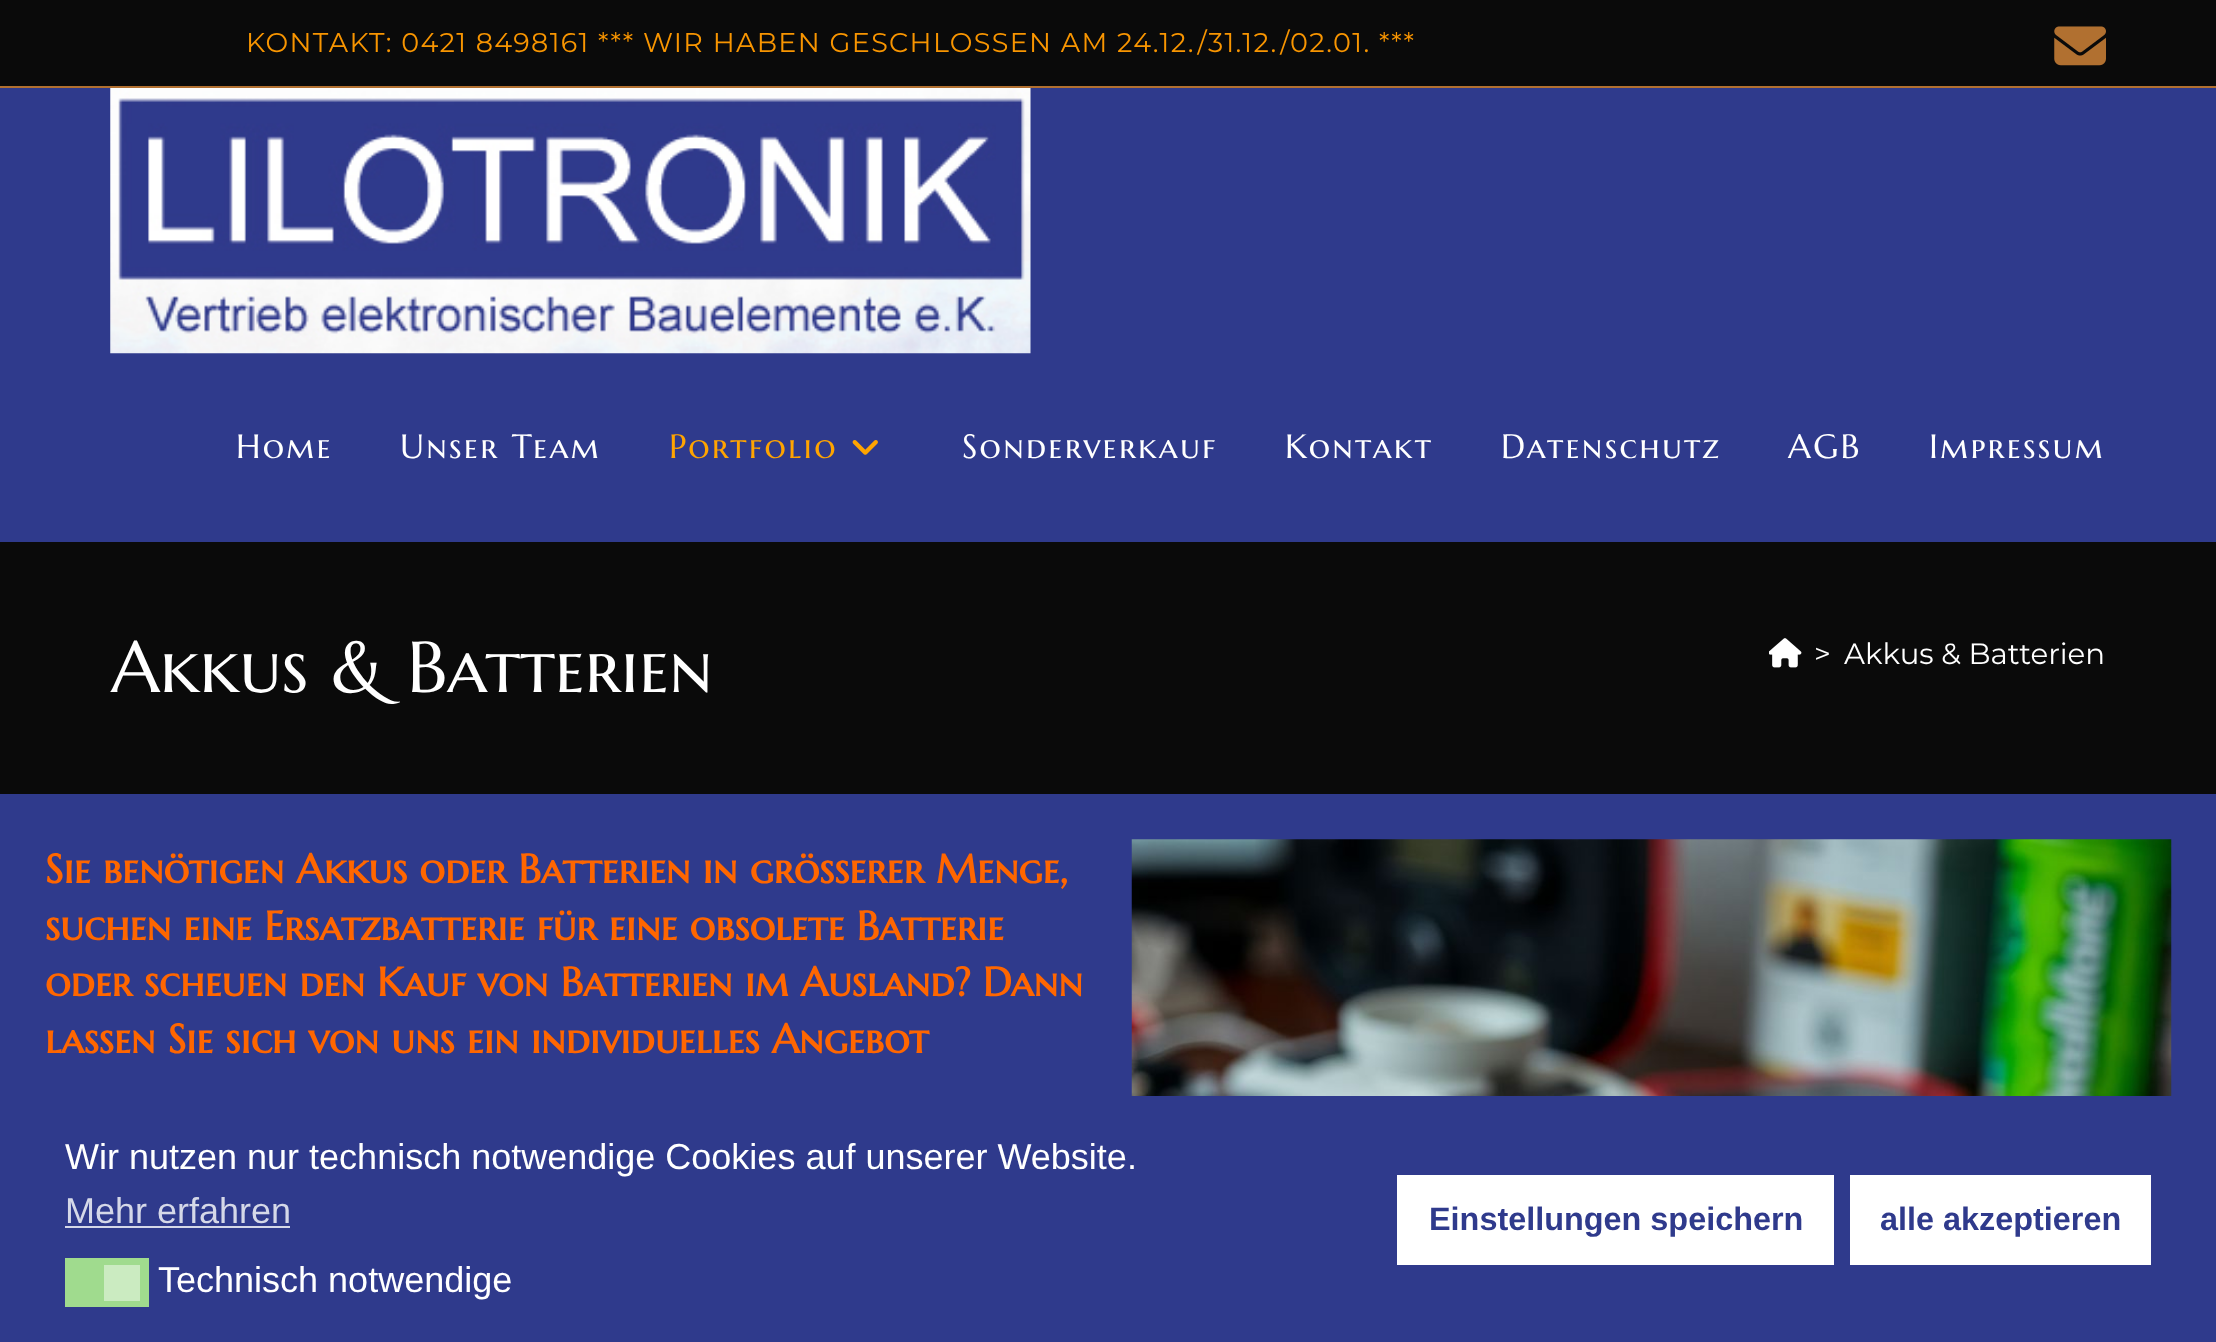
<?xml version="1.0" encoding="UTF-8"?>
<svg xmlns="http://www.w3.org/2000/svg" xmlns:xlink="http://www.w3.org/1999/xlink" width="2216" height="1342">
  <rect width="100%" height="100%" fill="#0a0a0a" />
  <rect y="86" width="2216" height="2" fill="#b17030" />
  <image x="2054" y="26" width="52" height="40" xlink:href="image1.png" />
  <rect y="88" width="2216" height="454" fill="#2f3a8c" />
  <image x="110" y="88" width="921" height="266" xlink:href="image2.png" />
  <image x="852" y="440" width="26" height="15" xlink:href="image3.png" />
  <image x="1769" y="638" width="33" height="30" xlink:href="image4.png" />
  <rect y="794" width="2216" height="548" fill="#2f3a8c" />
  <image x="1131" y="839" width="1041" height="257" xlink:href="image5.png" />
  <rect x="65" y="1226" width="225" height="2" fill="#d5d8e8" />
  <rect x="65" y="1258" width="84" height="49" fill="#a0db8e" />
  <rect x="104" y="1265" width="36" height="36" fill="#cbebc1" />
  <rect x="1397" y="1175" width="437" height="90" fill="#ffffff" />
  <rect x="1850" y="1175" width="301" height="90" fill="#ffffff" />
  <text x="246" y="52" style="font-family: Montserrat; font-size: 27px; letter-spacing: 1.35px; fill: #f89501">KONTAKT: 0421 8498161 *** WIR HABEN GESCHLOSSEN AM 24.12./31.12./02.01. ***</text>
  <text x="236" y="458" style="font-family: Marcellus SC; font-size: 33.75px; letter-spacing: 2.25px; fill: #ffffff">Home</text>
  <text x="400" y="458" style="font-family: Marcellus SC; font-size: 33.75px; letter-spacing: 2.25px; fill: #ffffff">Unser Team</text>
  <text x="669" y="458" style="font-family: Marcellus SC; font-size: 33.75px; letter-spacing: 2.25px; fill: #ffa400">Portfolio</text>
  <text x="962" y="458" style="font-family: Marcellus SC; font-size: 33.75px; letter-spacing: 2.25px; fill: #ffffff">Sonderverkauf</text>
  <text x="1285" y="458" style="font-family: Marcellus SC; font-size: 33.75px; letter-spacing: 2.25px; fill: #ffffff">Kontakt</text>
  <text x="1501" y="458" style="font-family: Marcellus SC; font-size: 33.75px; letter-spacing: 2.25px; fill: #ffffff">Datenschutz</text>
  <text x="1788" y="458" style="font-family: Marcellus SC; font-size: 33.75px; letter-spacing: 2.25px; fill: #ffffff">AGB</text>
  <text x="1929" y="458" style="font-family: Marcellus SC; font-size: 33.75px; letter-spacing: 2.25px; fill: #ffffff">Impressum</text>
  <text x="111" y="692" style="font-family: Marcellus SC; font-size: 72px; fill: #ffffff">Akkus &amp; Batterien</text>
  <text x="1814" y="664" style="font-family: Montserrat; font-size: 29.25px; fill: #ffffff">&gt;</text>
  <text x="1844" y="664" style="font-family: Montserrat; font-size: 29.25px; fill: #ffffff">Akkus &amp; Batterien</text>
  <text x="45" y="883" style="font-family: Marcellus SC; font-size: 40.5px; font-weight: bold; fill: #ff6600">Sie benötigen Akkus oder Batterien in größerer Menge,</text>
  <text x="45" y="940" style="font-family: Marcellus SC; font-size: 40.5px; font-weight: bold; fill: #ff6600">suchen eine Ersatzbatterie für eine obsolete Batterie</text>
  <text x="45" y="996" style="font-family: Marcellus SC; font-size: 40.5px; font-weight: bold; fill: #ff6600">oder scheuen den Kauf von Batterien im Ausland? Dann</text>
  <text x="45" y="1053" style="font-family: Marcellus SC; font-size: 40.5px; font-weight: bold; fill: #ff6600">lassen Sie sich von uns ein individuelles Angebot</text>
  <text x="65" y="1169" style="font-family: Liberation Sans; font-size: 36px; fill: #ffffff">Wir nutzen nur technisch notwendige Cookies auf unserer Website.</text>
  <text x="65" y="1223" style="font-family: Liberation Sans; font-size: 36px; fill: #d5d8e8">Mehr erfahren</text>
  <text x="158" y="1292" style="font-family: Liberation Sans; font-size: 36px; fill: #ffffff">Technisch notwendige</text>
  <text x="1429" y="1230" style="font-family: Liberation Sans; font-size: 32.4px; font-weight: bold; fill: #2f3a8c">Einstellungen speichern</text>
  <text x="1880" y="1230" style="font-family: Liberation Sans; font-size: 32.4px; font-weight: bold; fill: #2f3a8c">alle akzeptieren</text>
</svg>
